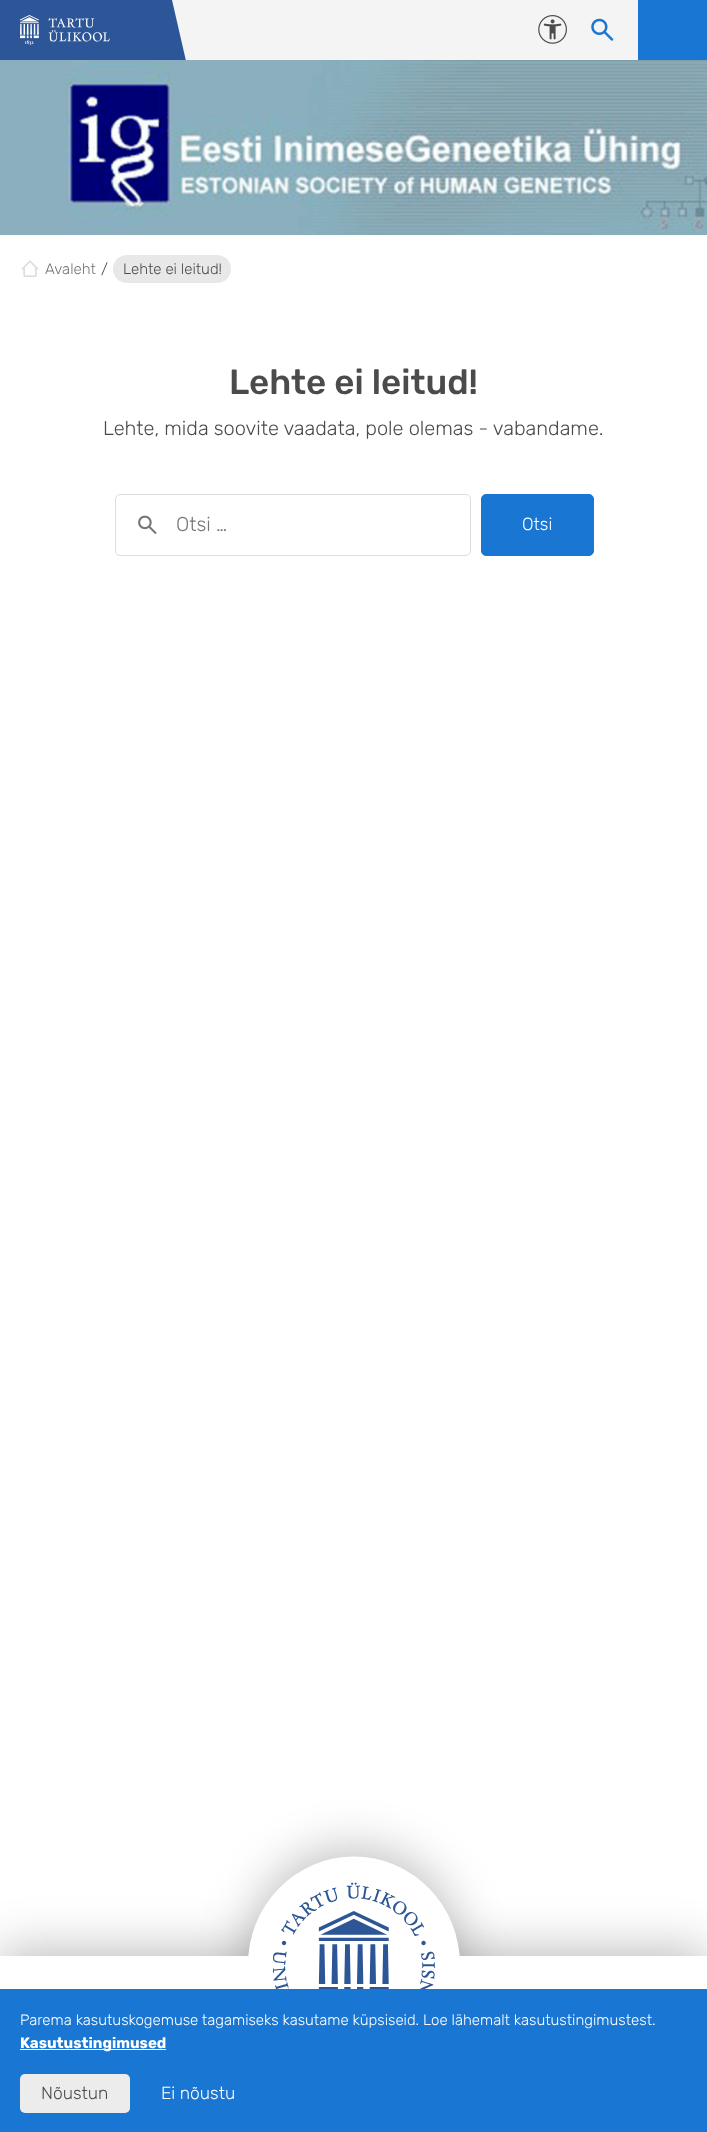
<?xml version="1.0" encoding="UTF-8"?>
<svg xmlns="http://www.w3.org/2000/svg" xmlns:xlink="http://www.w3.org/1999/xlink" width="707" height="2132">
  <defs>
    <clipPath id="clip1"><rect width="186" height="60" /></clipPath>
  </defs>
  <rect width="100%" height="100%" fill="#ffffff" />
  <rect x="172" width="466" height="60" fill="#f4f4f4" />
  <g clip-path="url(#clip1)">
    <path d="M 0 61 v -61 h 172 l 14 61 z" fill="#2c5697" />
  </g>
  <image x="20" y="15" width="90" height="30" xlink:href="image1.png" />
  <image x="538" y="15" width="29" height="29" xlink:href="image2.png" />
  <image x="591" y="18" width="23" height="23" xlink:href="image3.png" />
  <rect x="638" width="69" height="60" fill="#1976d2" />
  <image x="0" y="60" width="707" height="175" xlink:href="image4.png" />
  <image x="21" y="260" width="18" height="17" xlink:href="image5.png" />
  <rect x="113" y="255" width="118" height="28" rx="14" fill="#e8e8e8" />
  <rect x="115.5" y="494.5" width="355" height="61" rx="4.5" fill="none" stroke="#dddddd" />
  <image x="138" y="515" width="19" height="19" xlink:href="image6.png" />
  <rect x="481.5" y="494.5" width="112" height="61" rx="4.5" fill="#1976d2" stroke="#1976d2" />
  <rect y="1949" width="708" height="176" fill="#000000" fill-opacity="0.25" filter="blur(24px)" />
  <rect x="248" y="1849" width="212" height="216" rx="106" fill="#000000" fill-opacity="0.25" filter="blur(24px)" />
  <rect y="1956" width="707" height="33" fill="#ffffff" />
  <ellipse cx="354" cy="1964.5" rx="106" ry="108" fill="#ffffff" />
  <image x="273" y="1882" width="162" height="107" xlink:href="image7.png" />
  <rect y="1989" width="707" height="143" fill="#1976d2" />
  <rect x="20" y="2049" width="146" height="1" fill="#ffffff" />
  <rect x="20" y="2074" width="110" height="39" rx="5" fill="#ececec" />
  <text x="45" y="274" style="font-family: Rubik; font-size: 15px; font-weight: 300; fill: #757575">Avaleht</text>
  <text x="101" y="274" style="font-family: Rubik; font-size: 15px; font-weight: 300; fill: #4b4b4b">/</text>
  <text x="123" y="274" style="font-family: Rubik; font-size: 15px; font-weight: 300; fill: #4b4b4b">Lehte ei leitud!</text>
  <text x="229" y="394" style="font-family: Rubik; font-size: 35px; font-weight: 500; fill: #4b4b4b">Lehte ei leitud!</text>
  <text x="103" y="435" style="font-family: Rubik; font-size: 20px; font-weight: 300; fill: #4b4b4b">Lehte, mida soovite vaadata, pole olemas - vabandame.</text>
  <text x="176" y="531" style="font-family: Rubik; font-size: 20px; font-weight: 300; fill: #757575">Otsi …</text>
  <text x="522" y="530" style="font-family: Rubik; font-size: 17.5px; font-weight: 300; fill: #ffffff">Otsi</text>
  <text x="20" y="2025" style="font-family: Rubik; font-size: 15px; font-weight: 300; fill: #ffffff">Parema kasutuskogemuse tagamiseks kasutame küpsiseid. Loe lähemalt kasutustingimustest.</text>
  <text x="20" y="2048" style="font-family: Rubik; font-size: 15px; font-weight: bold; fill: #ffffff">Kasutustingimused</text>
  <text x="41" y="2099" style="font-family: Rubik; font-size: 17.5px; font-weight: 300; fill: #4b4b4b">Nõustun</text>
  <text x="161" y="2099" style="font-family: Rubik; font-size: 17.5px; font-weight: 300; fill: #ffffff">Ei nõustu</text>
</svg>
